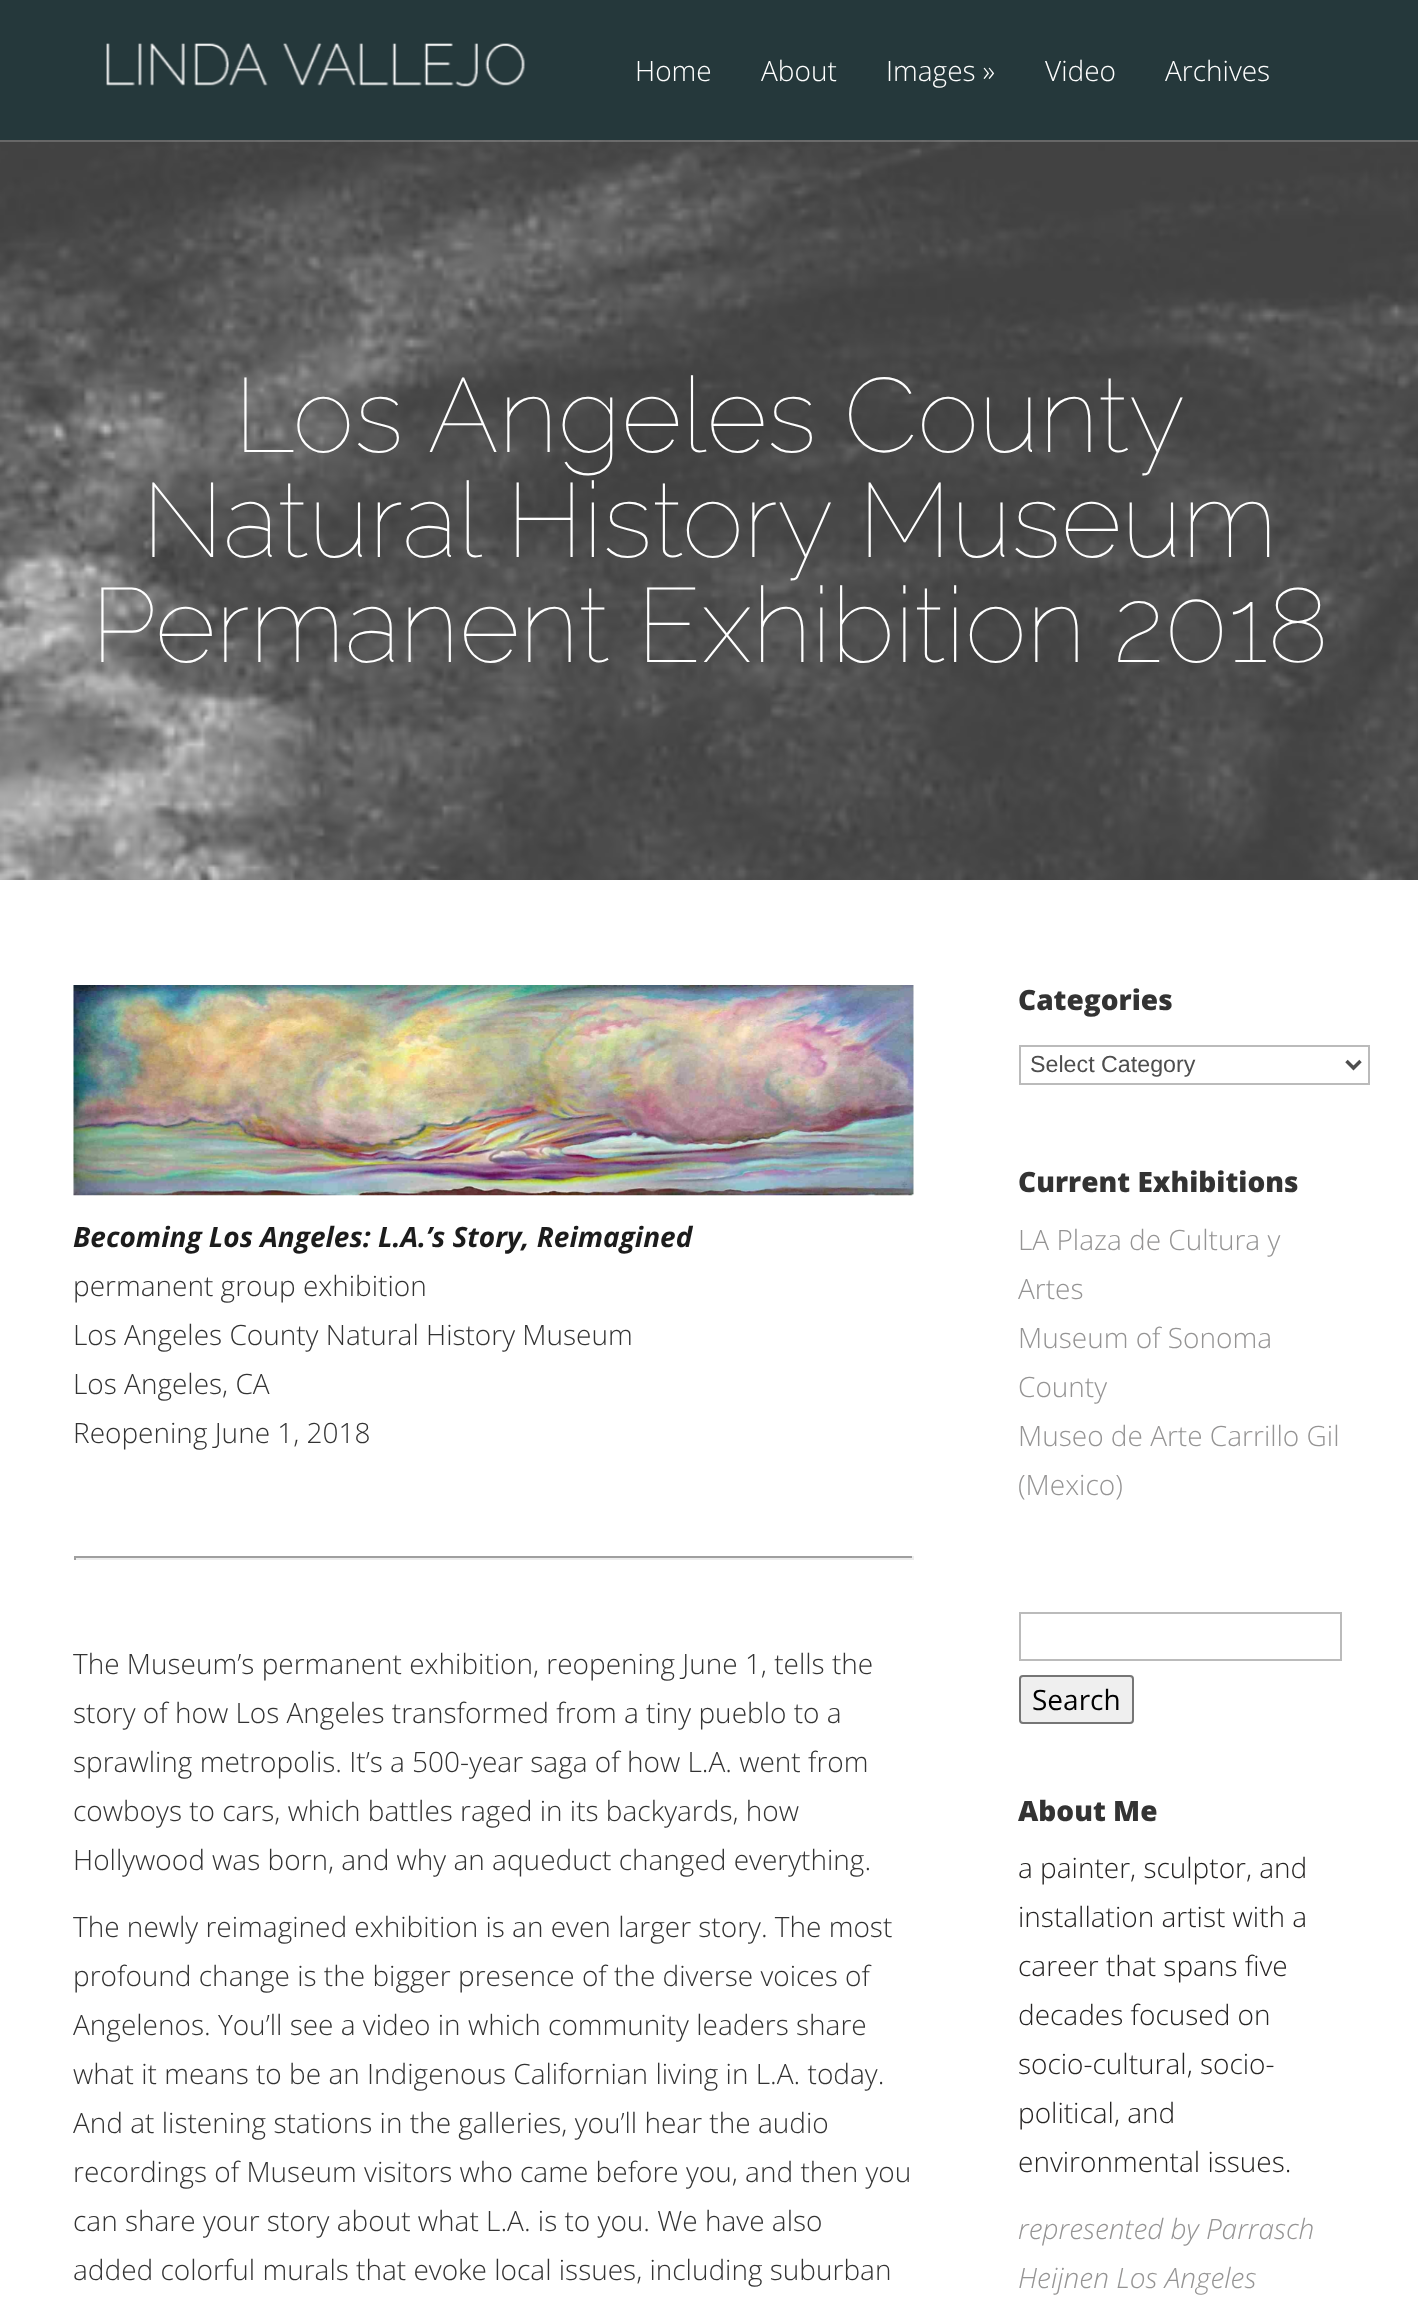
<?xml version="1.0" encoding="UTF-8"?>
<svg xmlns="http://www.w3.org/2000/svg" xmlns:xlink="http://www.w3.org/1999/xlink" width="1418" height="2317">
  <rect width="100%" height="100%" fill="#25383b" />
  <image x="0" y="140" width="1418" height="740" xlink:href="image2.png" />
  <rect y="140" width="1418" height="2" fill="#ffffff" fill-opacity="0.2" />
  <image x="106" y="43" width="419" height="44" xlink:href="image1.png" />
  <rect y="880" width="1418" height="1437" fill="#ffffff" />
  <image x="73" y="985" width="841" height="211" xlink:href="image3.png" />
  <rect x="74" y="1556" width="840" height="2" fill="#9f9f9f" />
  <rect x="912" y="1556" width="2" height="4" fill="#eeeeee" />
  <rect x="74" y="1558" width="840" height="2" fill="#eeeeee" />
  <rect x="74" y="1556" width="2" height="4" fill="#9f9f9f" />
  <rect x="1020" y="1046" width="349" height="38" fill="none" stroke="#bbbbbb" stroke-width="2" />
  <path d="M 1346.5 1061 l 7 7 l 7 -7" fill="none" stroke="#4e4e4e" stroke-width="3.5" />
  <rect x="1020" y="1613" width="321" height="47" fill="none" stroke="#bbbbbb" stroke-width="2" />
  <rect x="1020" y="1676" width="113" height="47" rx="3" fill="#efefef" stroke="#767676" stroke-width="2" />
  <text x="635" y="81" style="font-family: Open Sans; font-size: 28px; font-weight: 300; fill: #ffffff">Home</text>
  <text x="761" y="81" style="font-family: Open Sans; font-size: 28px; font-weight: 300; fill: #ffffff">About</text>
  <text x="886" y="81" style="font-family: Open Sans; font-size: 28px; font-weight: 300; fill: #ffffff">Images »</text>
  <text x="1045" y="81" style="font-family: Open Sans; font-size: 28px; font-weight: 300; fill: #ffffff">Video</text>
  <text x="1165" y="81" style="font-family: Open Sans; font-size: 28px; font-weight: 300; fill: #ffffff">Archives</text>
  <text x="234" y="452" style="font-family: Raleway; font-size: 105px; font-weight: 100; fill: #ffffff">Los Angeles County</text>
  <text x="142" y="557" style="font-family: Raleway; font-size: 105px; font-weight: 100; fill: #ffffff">Natural History Museum</text>
  <text x="91" y="662" style="font-family: Raleway; font-size: 105px; font-weight: 100; fill: #ffffff">Permanent Exhibition 2018</text>
  <text x="73" y="1247" style="font-family: Open Sans; font-size: 28px; font-weight: bold; font-style: italic; fill: #1c1c1c">Becoming Los Angeles: L.A.’s Story, Reimagined</text>
  <text x="73" y="1296" style="font-family: Open Sans; font-size: 28px; font-weight: 300; fill: #333333">permanent group exhibition</text>
  <text x="73" y="1345" style="font-family: Open Sans; font-size: 28px; font-weight: 300; fill: #333333">Los Angeles County Natural History Museum</text>
  <text x="73" y="1394" style="font-family: Open Sans; font-size: 28px; font-weight: 300; fill: #333333">Los Angeles, CA</text>
  <text x="73" y="1443" style="font-family: Open Sans; font-size: 28px; font-weight: 300; fill: #333333">Reopening June 1, 2018</text>
  <text x="73" y="1674" style="font-family: Open Sans; font-size: 28px; font-weight: 300; fill: #333333">The Museum’s permanent exhibition, reopening June 1, tells the</text>
  <text x="73" y="1723" style="font-family: Open Sans; font-size: 28px; font-weight: 300; fill: #333333">story of how Los Angeles transformed from a tiny pueblo to a</text>
  <text x="73" y="1772" style="font-family: Open Sans; font-size: 28px; font-weight: 300; fill: #333333">sprawling metropolis. It’s a 500-year saga of how L.A. went from</text>
  <text x="73" y="1821" style="font-family: Open Sans; font-size: 28px; font-weight: 300; fill: #333333">cowboys to cars, which battles raged in its backyards, how</text>
  <text x="73" y="1870" style="font-family: Open Sans; font-size: 28px; font-weight: 300; fill: #333333">Hollywood was born, and why an aqueduct changed everything.</text>
  <text x="73" y="1937" style="font-family: Open Sans; font-size: 28px; font-weight: 300; fill: #333333">The newly reimagined exhibition is an even larger story. The most</text>
  <text x="73" y="1986" style="font-family: Open Sans; font-size: 28px; font-weight: 300; fill: #333333">profound change is the bigger presence of the diverse voices of</text>
  <text x="73" y="2035" style="font-family: Open Sans; font-size: 28px; font-weight: 300; fill: #333333">Angelenos. You’ll see a video in which community leaders share</text>
  <text x="73" y="2084" style="font-family: Open Sans; font-size: 28px; font-weight: 300; fill: #333333">what it means to be an Indigenous Californian living in L.A. today.</text>
  <text x="73" y="2133" style="font-family: Open Sans; font-size: 28px; font-weight: 300; fill: #333333">And at listening stations in the galleries, you’ll hear the audio</text>
  <text x="73" y="2182" style="font-family: Open Sans; font-size: 28px; font-weight: 300; fill: #333333">recordings of Museum visitors who came before you, and then you</text>
  <text x="73" y="2231" style="font-family: Open Sans; font-size: 28px; font-weight: 300; fill: #333333">can share your story about what L.A. is to you. We have also</text>
  <text x="73" y="2280" style="font-family: Open Sans; font-size: 28px; font-weight: 300; fill: #333333">added colorful murals that evoke local issues, including suburban</text>
  <text x="1018" y="1010" style="font-family: Open Sans; font-size: 28px; font-weight: 800; fill: #333333">Categories</text>
  <text x="1030" y="1072" style="font-family: Liberation Sans; font-size: 23.25px; fill: #4e4e4e">Select Category</text>
  <text x="1018" y="1192" style="font-family: Open Sans; font-size: 28px; font-weight: 800; fill: #333333">Current Exhibitions</text>
  <text x="1018" y="1250" style="font-family: Open Sans; font-size: 28px; font-weight: 300; fill: #959494">LA Plaza de Cultura y</text>
  <text x="1018" y="1299" style="font-family: Open Sans; font-size: 28px; font-weight: 300; fill: #959494">Artes</text>
  <text x="1018" y="1348" style="font-family: Open Sans; font-size: 28px; font-weight: 300; fill: #959494">Museum of Sonoma</text>
  <text x="1018" y="1397" style="font-family: Open Sans; font-size: 28px; font-weight: 300; fill: #959494">County</text>
  <text x="1018" y="1446" style="font-family: Open Sans; font-size: 28px; font-weight: 300; fill: #959494">Museo de Arte Carrillo Gil</text>
  <text x="1018" y="1495" style="font-family: Open Sans; font-size: 28px; font-weight: 300; fill: #959494">(Mexico)</text>
  <text x="1032" y="1710" style="font-family: Open Sans; font-size: 28px; fill: #000000">Search</text>
  <text x="1018" y="1821" style="font-family: Open Sans; font-size: 28px; font-weight: 800; fill: #333333">About Me</text>
  <text x="1018" y="1878" style="font-family: Open Sans; font-size: 28px; font-weight: 300; fill: #262423">a painter, sculptor, and</text>
  <text x="1018" y="1927" style="font-family: Open Sans; font-size: 28px; font-weight: 300; fill: #262423">installation artist with a</text>
  <text x="1018" y="1976" style="font-family: Open Sans; font-size: 28px; font-weight: 300; fill: #262423">career that spans five</text>
  <text x="1018" y="2025" style="font-family: Open Sans; font-size: 28px; font-weight: 300; fill: #262423">decades focused on</text>
  <text x="1018" y="2074" style="font-family: Open Sans; font-size: 28px; font-weight: 300; fill: #262423">socio-cultural, socio-</text>
  <text x="1018" y="2123" style="font-family: Open Sans; font-size: 28px; font-weight: 300; fill: #262423">political, and</text>
  <text x="1018" y="2172" style="font-family: Open Sans; font-size: 28px; font-weight: 300; fill: #262423">environmental issues.</text>
  <text x="1018" y="2239" style="font-family: Open Sans; font-size: 28px; font-weight: 300; font-style: italic; fill: #959494">represented by Parrasch</text>
  <text x="1018" y="2288" style="font-family: Open Sans; font-size: 28px; font-weight: 300; font-style: italic; fill: #959494">Heijnen Los Angeles</text>
</svg>
